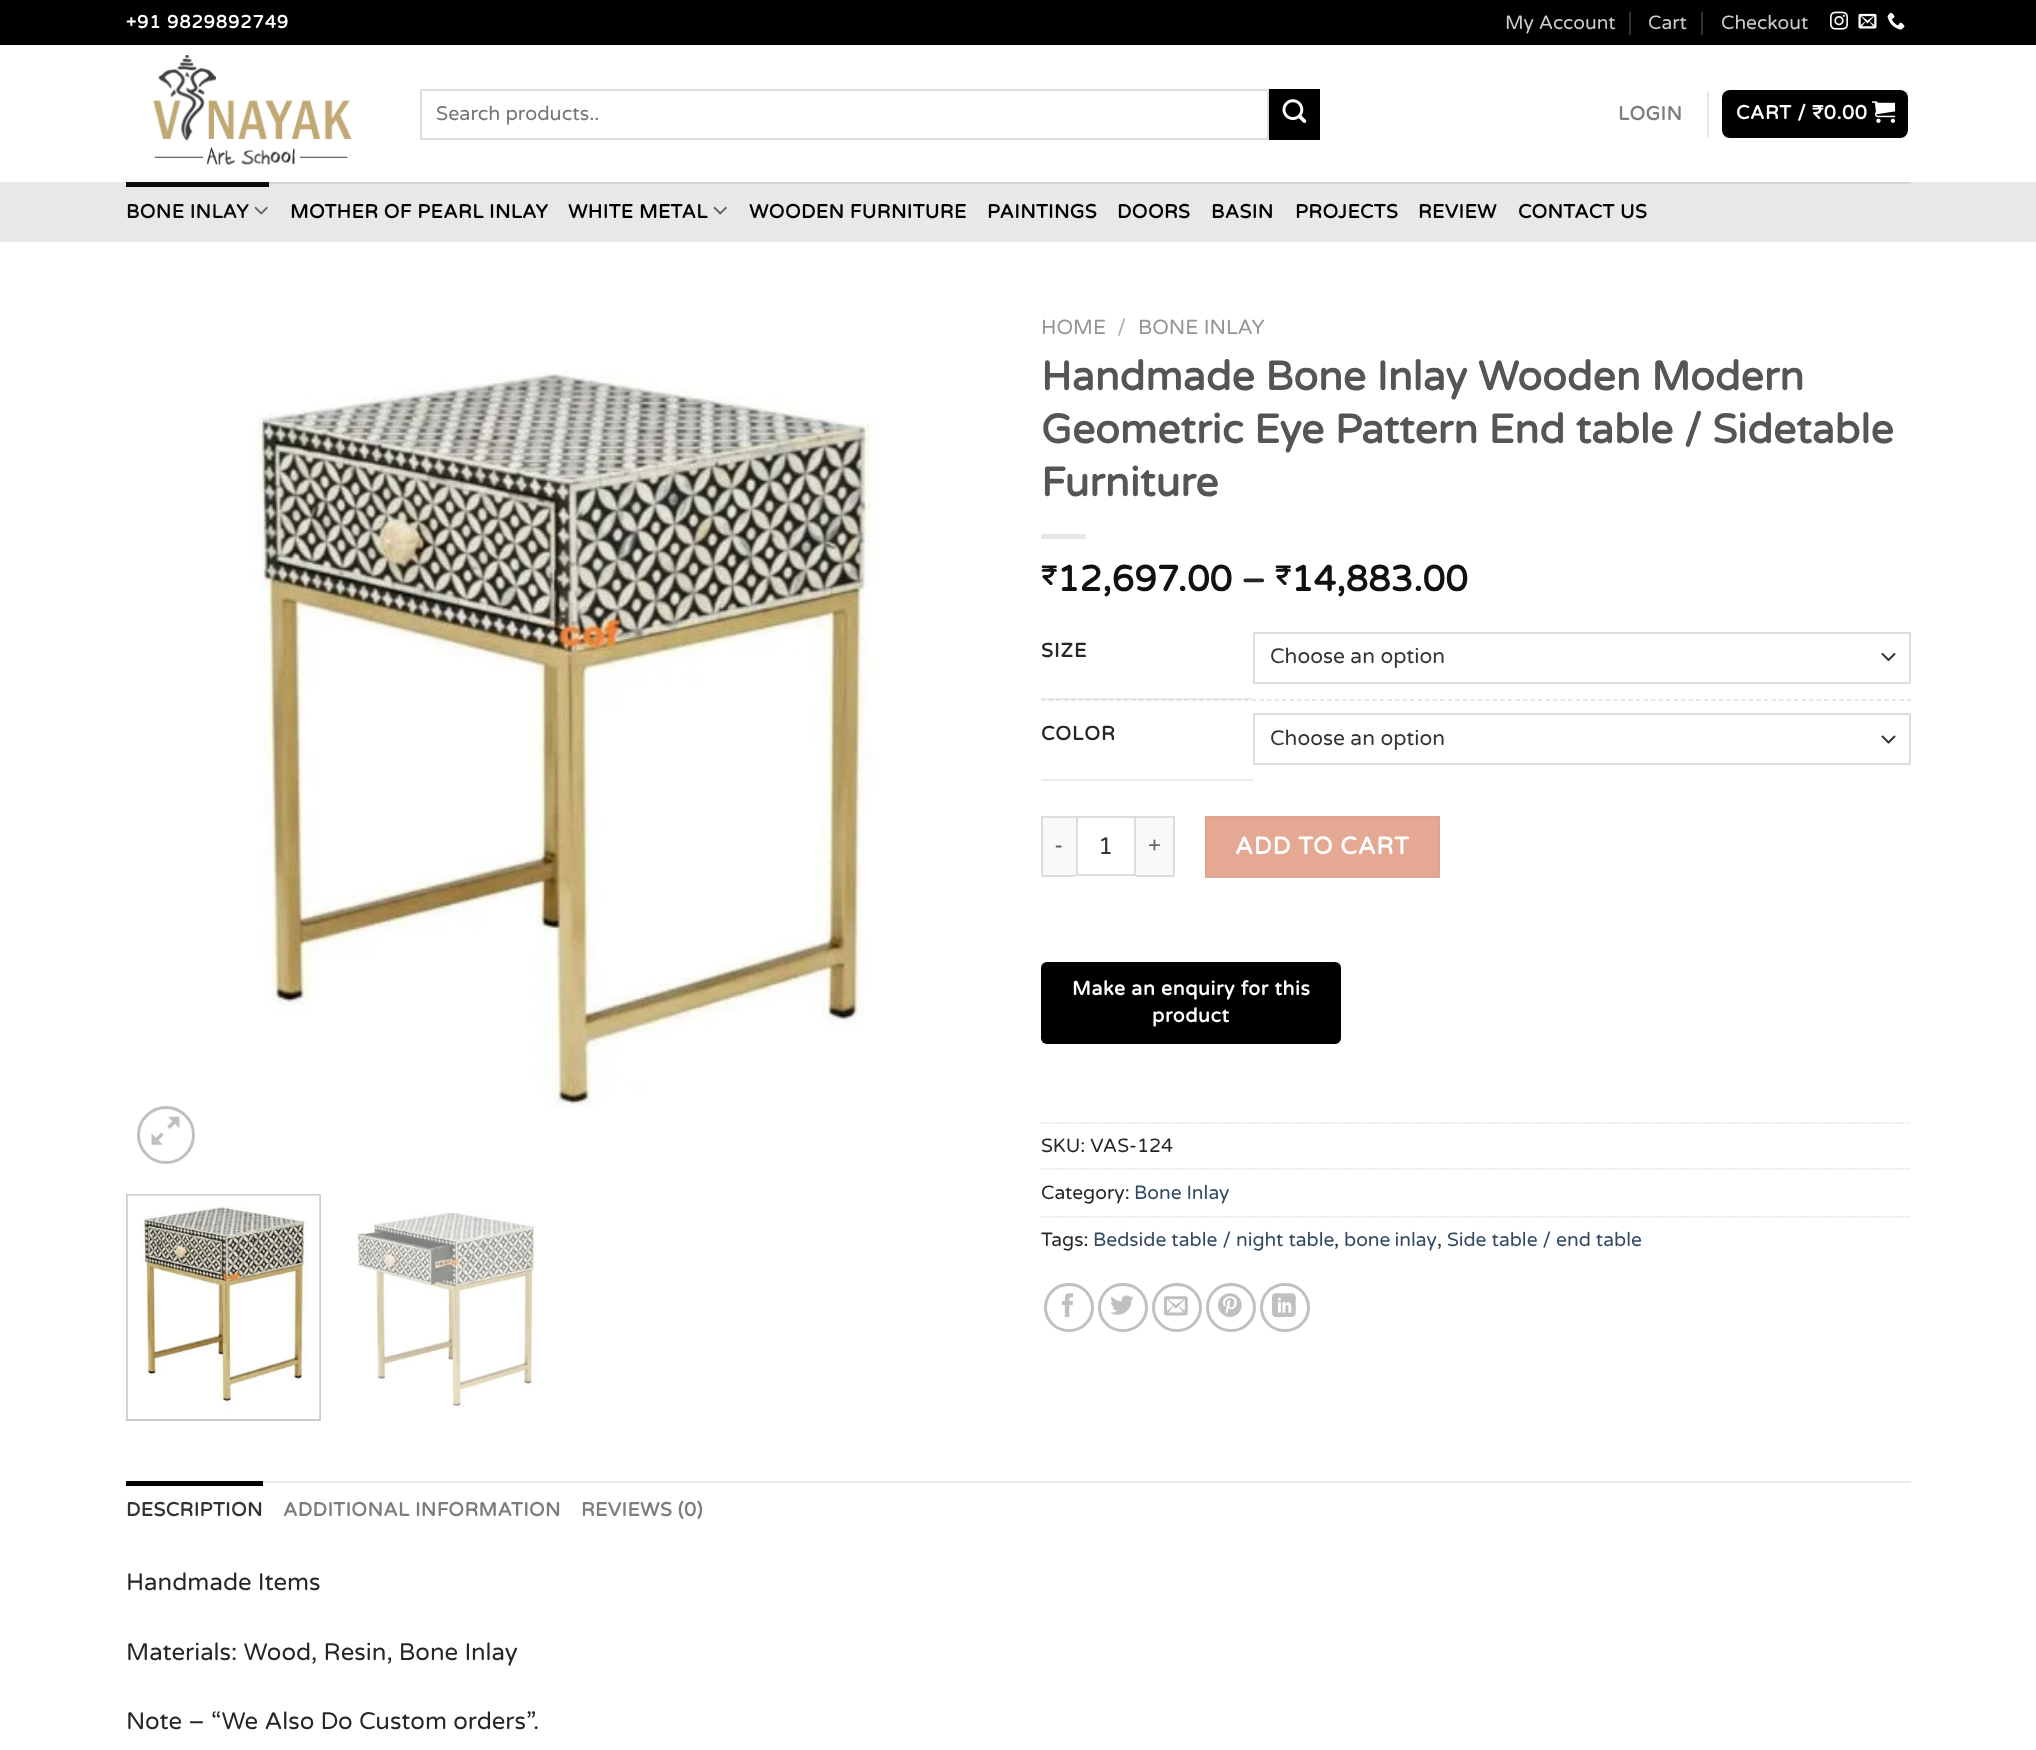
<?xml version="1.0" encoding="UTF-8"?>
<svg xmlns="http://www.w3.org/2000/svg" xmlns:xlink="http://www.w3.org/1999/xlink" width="2036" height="1750">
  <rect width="100%" height="100%" fill="#ffffff" />
  <rect width="2036" height="45" fill="#000000" />
  <rect x="1629" y="12" width="2" height="23" fill="#333333" />
  <rect x="1701" y="12" width="2" height="23" fill="#333333" />
  <image x="1830" y="11" width="18" height="19" xlink:href="image1.png" />
  <image x="1858" y="13" width="19" height="16" xlink:href="image2.png" />
  <image x="1887" y="12" width="18" height="18" xlink:href="image3.png" />
  <image x="153" y="55" width="199" height="111" xlink:href="image4.png" />
  <rect x="421" y="90" width="847" height="49" fill="none" stroke="#dddddd" stroke-width="2" />
  <rect x="1269" y="89" width="51" height="51" fill="#000000" />
  <image x="1282" y="99" width="25" height="24" xlink:href="image5.png" />
  <rect x="1707" y="92" width="2" height="45" fill="#e6e6e6" />
  <rect x="1722" y="90" width="186" height="48" rx="8" fill="#000000" />
  <rect x="1723" y="91" width="184" height="46" fill="none" stroke="#000000" stroke-opacity="0.05" stroke-width="2" />
  <image x="1872" y="101" width="24" height="22" xlink:href="image6.png" />
  <rect y="182" width="2036" height="60" fill="#e8e8e8" />
  <rect x="269" y="182" width="1642" height="2" fill="#d5d5d5" />
  <rect x="126" y="184" width="143" height="3" fill="#0a0a0a" />
  <rect x="126" y="182" width="143" height="2" fill="#0d0d0d" />
  <image x="254" y="206" width="14" height="9" xlink:href="image7.png" />
  <image x="713" y="206" width="14" height="9" xlink:href="image8.png" />
  <image x="252" y="370" width="623" height="737" xlink:href="image9.png" />
  <circle cx="166" cy="1135" r="27.5" fill="none" stroke="#c0c0c0" stroke-width="3" />
  <image x="151" y="1116" width="29" height="29" xlink:href="image10.png" />
  <rect x="127" y="1195" width="193" height="225" fill="none" stroke="#cccccc" stroke-width="2" />
  <image x="127" y="1195" width="193" height="224" xlink:href="image11.png" />
  <image x="356" y="1212" width="180" height="196" xlink:href="image12.png" />
  <rect x="1041" y="534" width="45" height="5" fill="#e6e6e6" />
  <rect x="1041" y="698" width="212" height="2" fill="#ececec" />
  <path d="M 1882.5 654 l 6 6 l 6 -6" fill="none" stroke="#333333" stroke-width="2" stroke-linecap="round" stroke-linejoin="round" />
  <rect x="1254" y="633" width="656" height="50" fill="none" stroke="#dddddd" stroke-width="2" />
  <path d="M 1041 700 h 870" fill="none" stroke="#dddddd" stroke-width="1.5" stroke-dasharray="4.5 3.03" />
  <rect x="1041" y="779" width="212" height="2" fill="#ececec" />
  <path d="M 1882.5 736.5 l 6 6 l 6 -6" fill="none" stroke="#333333" stroke-width="2" stroke-linecap="round" stroke-linejoin="round" />
  <rect x="1254" y="714" width="656" height="50" fill="none" stroke="#dddddd" stroke-width="2" />
  <rect x="1043" y="818" width="33" height="57" fill="#f9f9f9" />
  <rect x="1041" y="816" width="35" height="2" fill="#dddddd" />
  <rect x="1041" y="875" width="35" height="2" fill="#dddddd" />
  <rect x="1041" y="816" width="2" height="60" fill="#dddddd" />
  <rect x="1077" y="817" width="58" height="58" fill="none" stroke="#dddddd" stroke-width="2" />
  <rect x="1136" y="818" width="37" height="57" fill="#f9f9f9" />
  <rect x="1136" y="816" width="39" height="2" fill="#dddddd" />
  <rect x="1173" y="816" width="2" height="60" fill="#dddddd" />
  <rect x="1136" y="875" width="39" height="2" fill="#dddddd" />
  <rect x="1206" y="817" width="233" height="60" fill="#e4a893" stroke="#dea591" stroke-width="2" />
  <rect x="1041" y="962" width="300" height="82" rx="6" fill="#000000" />
  <rect x="1042" y="963" width="298" height="80" fill="none" stroke="#000000" stroke-opacity="0.05" stroke-width="2" />
  <path d="M 1041 1123 h 870" fill="none" stroke="#dddddd" stroke-width="1.5" stroke-dasharray="1.5 1.5" />
  <path d="M 1041 1169 h 870" fill="none" stroke="#dddddd" stroke-width="1.5" stroke-dasharray="1.5 1.5" />
  <path d="M 1041 1217 h 870" fill="none" stroke="#dddddd" stroke-width="1.5" stroke-dasharray="1.5 1.5" />
  <rect x="1045.5" y="1284.5" width="47" height="46" rx="23" fill="none" stroke="#c0c0c0" stroke-width="3" />
  <image x="1062" y="1293" width="11" height="24" xlink:href="image13.png" />
  <rect x="1099.5" y="1284.5" width="47" height="46" rx="23" fill="none" stroke="#c0c0c0" stroke-width="3" />
  <image x="1110" y="1295" width="24" height="20" xlink:href="image14.png" />
  <rect x="1153.5" y="1284.5" width="47" height="46" rx="23" fill="none" stroke="#c0c0c0" stroke-width="3" />
  <image x="1164" y="1296" width="24" height="20" xlink:href="image15.png" />
  <rect x="1207.5" y="1284.5" width="47" height="46" rx="23" fill="none" stroke="#c0c0c0" stroke-width="3" />
  <image x="1218" y="1293" width="24" height="24" xlink:href="image16.png" />
  <rect x="1261.5" y="1284.5" width="47" height="46" rx="23" fill="none" stroke="#c0c0c0" stroke-width="3" />
  <image x="1272" y="1293" width="24" height="24" xlink:href="image17.png" />
  <rect x="263" y="1481" width="1648" height="2" fill="#ececec" />
  <rect x="126" y="1481" width="137" height="5" fill="#000000" />
  <text x="126" y="28" style="font-family: Varela Round; font-size: 18px; font-weight: bold; letter-spacing: 0.9px; fill: #ffffff">+91 9829892749</text>
  <text x="1505" y="29" style="font-family: Varela Round; font-size: 19.25px; fill: #cccccc">My Account</text>
  <text x="1648" y="29" style="font-family: Varela Round; font-size: 19.25px; fill: #cccccc">Cart</text>
  <text x="1721" y="29" style="font-family: Varela Round; font-size: 19.25px; fill: #cccccc">Checkout</text>
  <text x="436" y="120" style="font-family: Varela Round; font-size: 19.75px; fill: #757575">Search products..</text>
  <text x="1618" y="120" style="font-family: Varela Round; font-size: 19.25px; font-weight: bold; letter-spacing: 0.4px; fill: #7d7d7d">LOGIN</text>
  <text x="1736" y="119" style="font-family: Varela Round; font-size: 19.25px; font-weight: bold; letter-spacing: 0.6px; fill: #ffffff">CART / ₹0.00</text>
  <text x="126" y="218" style="font-family: Varela Round; font-size: 19.25px; font-weight: bold; letter-spacing: 0.4px; fill: #0a0a0a">BONE INLAY</text>
  <text x="290" y="218" style="font-family: Varela Round; font-size: 19.25px; font-weight: bold; letter-spacing: 0.4px; fill: #000000">MOTHER OF PEARL INLAY</text>
  <text x="568" y="218" style="font-family: Varela Round; font-size: 19.25px; font-weight: bold; letter-spacing: 0.4px; fill: #000000">WHITE METAL</text>
  <text x="749" y="218" style="font-family: Varela Round; font-size: 19.25px; font-weight: bold; letter-spacing: 0.4px; fill: #000000">WOODEN FURNITURE</text>
  <text x="987" y="218" style="font-family: Varela Round; font-size: 19.25px; font-weight: bold; letter-spacing: 0.4px; fill: #000000">PAINTINGS</text>
  <text x="1117" y="218" style="font-family: Varela Round; font-size: 19.25px; font-weight: bold; letter-spacing: 0.4px; fill: #000000">DOORS</text>
  <text x="1211" y="218" style="font-family: Varela Round; font-size: 19.25px; font-weight: bold; letter-spacing: 0.4px; fill: #000000">BASIN</text>
  <text x="1295" y="218" style="font-family: Varela Round; font-size: 19.25px; font-weight: bold; letter-spacing: 0.4px; fill: #000000">PROJECTS</text>
  <text x="1418" y="218" style="font-family: Varela Round; font-size: 19.25px; font-weight: bold; letter-spacing: 0.4px; fill: #000000">REVIEW</text>
  <text x="1518" y="218" style="font-family: Varela Round; font-size: 19.25px; font-weight: bold; letter-spacing: 0.4px; fill: #000000">CONTACT US</text>
  <text x="1041" y="334" style="font-family: Varela Round; font-size: 20.5px; fill: #949494">HOME</text>
  <text x="1117" y="334" style="font-family: Varela Round; font-size: 20.5px; fill: #b2b2b2">/</text>
  <text x="1138" y="334" style="font-family: Varela Round; font-size: 20.5px; fill: #949494">BONE INLAY</text>
  <text x="1041" y="390" style="font-family: Varela Round; font-size: 40.8px; font-weight: bold; fill: #555555">Handmade Bone Inlay Wooden Modern</text>
  <text x="1041" y="443" style="font-family: Varela Round; font-size: 40.8px; font-weight: bold; fill: #555555">Geometric Eye Pattern End table / Sidetable</text>
  <text x="1041" y="496" style="font-family: Varela Round; font-size: 40.8px; font-weight: bold; fill: #555555">Furniture</text>
  <text x="1041" y="585" style="font-family: Varela Round; font-size: 27px; font-weight: bold; fill: #111111">₹</text>
  <text x="1057" y="591" style="font-family: Varela Round; font-size: 36px; font-weight: bold; fill: #111111">12,697.00</text>
  <text x="1241" y="591" style="font-family: Varela Round; font-size: 36px; font-weight: bold; fill: #262626">–</text>
  <text x="1275" y="585" style="font-family: Varela Round; font-size: 27px; font-weight: bold; fill: #111111">₹</text>
  <text x="1291" y="591" style="font-family: Varela Round; font-size: 36px; font-weight: bold; fill: #111111">14,883.00</text>
  <text x="1041" y="657" style="font-family: Varela Round; font-size: 19.5px; font-weight: bold; letter-spacing: 1px; fill: #262626">SIZE</text>
  <text x="1270" y="663" style="font-family: Varela Round; font-size: 21px; fill: #333333">Choose an option</text>
  <text x="1041" y="740" style="font-family: Varela Round; font-size: 19.5px; font-weight: bold; letter-spacing: 1px; fill: #262626">COLOR</text>
  <text x="1270" y="745" style="font-family: Varela Round; font-size: 21px; fill: #333333">Choose an option</text>
  <text x="1054" y="853" style="font-family: Varela Round; font-size: 23px; letter-spacing: 1px; fill: #666666">-</text>
  <text x="1098" y="854" style="font-family: Varela Round; font-size: 24px; fill: #333333">1</text>
  <text x="1148" y="853" style="font-family: Varela Round; font-size: 23px; letter-spacing: 1px; fill: #666666">+</text>
  <text x="1235" y="854" style="font-family: Varela Round; font-size: 24px; font-weight: bold; letter-spacing: 0.75px; fill: #ffffff">ADD TO CART</text>
  <text x="1072" y="995" style="font-family: Varela Round; font-size: 19.5px; font-weight: bold; letter-spacing: 0.6px; fill: #ffffff">Make an enquiry for this</text>
  <text x="1152" y="1022" style="font-family: Varela Round; font-size: 19.5px; font-weight: bold; letter-spacing: 0.6px; fill: #ffffff">product</text>
  <text x="1041" y="1152" style="font-family: Varela Round; font-size: 19.25px; fill: #262626">SKU: VAS-124</text>
  <text x="1041" y="1199" style="font-family: Varela Round; font-size: 19.25px; fill: #262626">Category:</text>
  <text x="1134" y="1199" style="font-family: Varela Round; font-size: 19.25px; fill: #334862">Bone Inlay</text>
  <text x="1041" y="1246" style="font-family: Varela Round; font-size: 19.25px; fill: #262626">Tags:</text>
  <text x="1093" y="1246" style="font-family: Varela Round; font-size: 19.25px; fill: #334862">Bedside table / night table</text>
  <text x="1334" y="1246" style="font-family: Varela Round; font-size: 19.25px; fill: #262626">,</text>
  <text x="1344" y="1246" word-spacing="-1" style="font-family: Varela Round; font-size: 19.25px; fill: #334862">bone inlay</text>
  <text x="1437" y="1246" style="font-family: Varela Round; font-size: 19.25px; fill: #262626">,</text>
  <text x="1447" y="1246" style="font-family: Varela Round; font-size: 19.25px; fill: #334862">Side table / end table</text>
  <text x="126" y="1516" style="font-family: Varela Round; font-size: 19.25px; font-weight: bold; letter-spacing: 0.4px; fill: #333333">DESCRIPTION</text>
  <text x="283" y="1516" style="font-family: Varela Round; font-size: 19.25px; font-weight: bold; letter-spacing: 0.4px; fill: #7d7d7d">ADDITIONAL INFORMATION</text>
  <text x="581" y="1516" style="font-family: Varela Round; font-size: 19.25px; font-weight: bold; letter-spacing: 0.4px; fill: #7d7d7d">REVIEWS (0)</text>
  <text x="126" y="1590" style="font-family: Varela Round; font-size: 24px; fill: #262626">Handmade Items</text>
  <text x="126" y="1660" style="font-family: Varela Round; font-size: 24px; fill: #262626">Materials: Wood, Resin, Bone Inlay</text>
  <text x="126" y="1729" style="font-family: Varela Round; font-size: 24px; fill: #262626">Note – “We Also Do Custom orders”.</text>
</svg>
